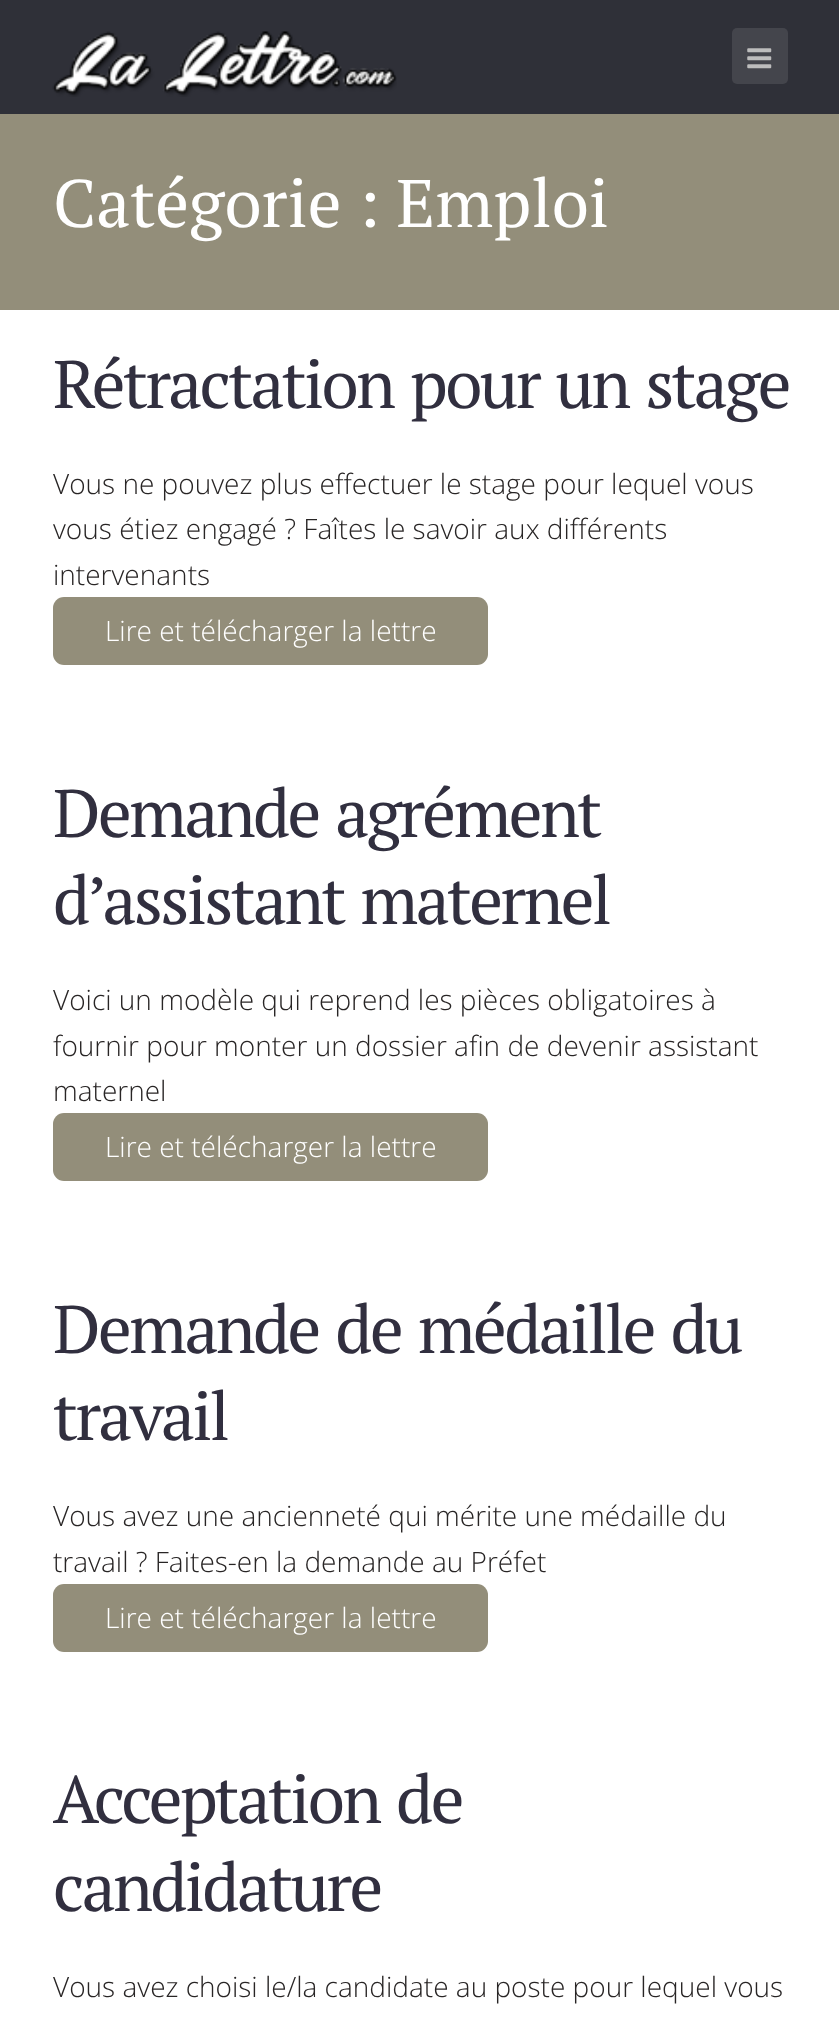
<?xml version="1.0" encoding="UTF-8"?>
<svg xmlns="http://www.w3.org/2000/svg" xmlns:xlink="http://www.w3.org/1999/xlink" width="839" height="2022">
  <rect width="100%" height="100%" fill="#ffffff" />
  <rect width="839" height="114" fill="#2f3038" />
  <image x="52" y="31" width="345" height="66" xlink:href="image1.png" />
  <rect x="732" y="28" width="56" height="56" rx="5" fill="#44454c" />
  <image x="747" y="48" width="25" height="21" xlink:href="image2.png" />
  <rect y="114" width="839" height="196" fill="#938e7a" />
  <rect x="53" y="597" width="435" height="68" rx="11" fill="#938e7a" />
  <rect x="53" y="1113" width="435" height="68" rx="11" fill="#938e7a" />
  <rect x="53" y="1584" width="435" height="68" rx="11" fill="#938e7a" />
  <text x="53" y="227" style="font-family: PT Serif; font-size: 67.25px; fill: #ffffff">Catégorie : Emploi</text>
  <text x="53" y="408" word-spacing="3" style="font-family: PT Serif; font-size: 67.25px; letter-spacing: -2.7px; fill: #312f3f">Rétractation pour un stage</text>
  <text x="53" y="494" style="font-family: Open Sans; font-size: 28px; font-weight: 300; fill: #282525">Vous ne pouvez plus effectuer le stage pour lequel vous</text>
  <text x="53" y="539" style="font-family: Open Sans; font-size: 28px; font-weight: 300; fill: #282525">vous étiez engagé ? Faîtes le savoir aux différents</text>
  <text x="53" y="585" style="font-family: Open Sans; font-size: 28px; font-weight: 300; fill: #282525">intervenants</text>
  <text x="105" y="641" style="font-family: Open Sans; font-size: 28px; font-weight: 300; fill: #ffffff">Lire et télécharger la lettre</text>
  <text x="53" y="837" word-spacing="3" style="font-family: PT Serif; font-size: 67.25px; letter-spacing: -2.7px; fill: #312f3f">Demande agrément</text>
  <text x="53" y="924" word-spacing="3" style="font-family: PT Serif; font-size: 67.25px; letter-spacing: -2.7px; fill: #312f3f">d’assistant maternel</text>
  <text x="53" y="1010" style="font-family: Open Sans; font-size: 28px; font-weight: 300; fill: #282525">Voici un modèle qui reprend les pièces obligatoires à</text>
  <text x="53" y="1056" style="font-family: Open Sans; font-size: 28px; font-weight: 300; fill: #282525">fournir pour monter un dossier afin de devenir assistant</text>
  <text x="53" y="1101" style="font-family: Open Sans; font-size: 28px; font-weight: 300; fill: #282525">maternel</text>
  <text x="105" y="1157" style="font-family: Open Sans; font-size: 28px; font-weight: 300; fill: #ffffff">Lire et télécharger la lettre</text>
  <text x="53" y="1353" word-spacing="3" style="font-family: PT Serif; font-size: 67.25px; letter-spacing: -2.7px; fill: #312f3f">Demande de médaille du</text>
  <text x="53" y="1440" style="font-family: PT Serif; font-size: 67.25px; letter-spacing: -2.7px; fill: #312f3f">travail</text>
  <text x="53" y="1526" style="font-family: Open Sans; font-size: 28px; font-weight: 300; fill: #282525">Vous avez une ancienneté qui mérite une médaille du</text>
  <text x="53" y="1572" style="font-family: Open Sans; font-size: 28px; font-weight: 300; fill: #282525">travail ? Faites-en la demande au Préfet</text>
  <text x="105" y="1628" style="font-family: Open Sans; font-size: 28px; font-weight: 300; fill: #ffffff">Lire et télécharger la lettre</text>
  <text x="53" y="1823" word-spacing="3" style="font-family: PT Serif; font-size: 67.25px; letter-spacing: -2.7px; fill: #312f3f">Acceptation de</text>
  <text x="53" y="1911" style="font-family: PT Serif; font-size: 67.25px; letter-spacing: -2.7px; fill: #312f3f">candidature</text>
  <text x="53" y="1997" style="font-family: Open Sans; font-size: 28px; font-weight: 300; fill: #282525">Vous avez choisi le/la candidate au poste pour lequel vous</text>
</svg>
